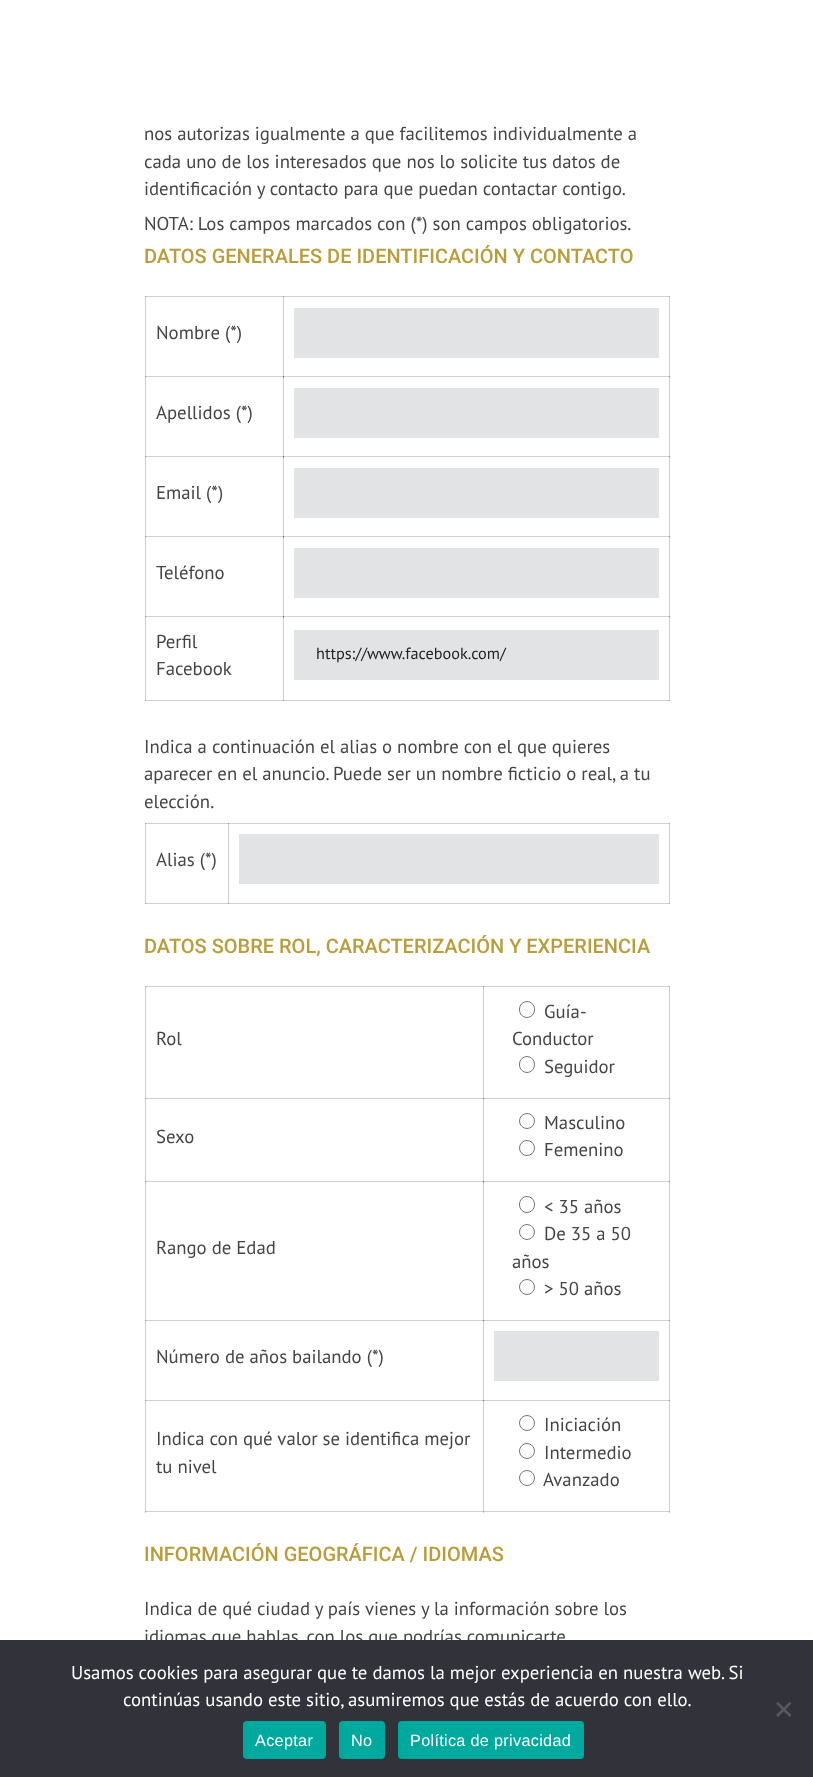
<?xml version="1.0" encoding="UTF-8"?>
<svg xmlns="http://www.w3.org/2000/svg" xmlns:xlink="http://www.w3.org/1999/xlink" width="813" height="1777">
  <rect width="100%" height="100%" fill="#ffffff" />
  <rect x="483" y="986" width="1" height="113" fill="#cfcfcf" />
  <rect x="145" y="1098" width="339" height="1" fill="#cfcfcf" />
  <rect x="483" y="1098" width="1" height="85" fill="#cfcfcf" />
  <rect x="483" y="1098" width="187" height="1" fill="#cfcfcf" />
  <rect x="483" y="1098" width="1" height="1" fill="#6e6e6e" />
  <rect x="145" y="1181" width="339" height="1" fill="#cfcfcf" />
  <rect x="483" y="1181" width="1" height="140" fill="#cfcfcf" />
  <rect x="483" y="1181" width="1" height="2" fill="#a7a7a7" />
  <rect x="483" y="1181" width="187" height="1" fill="#cfcfcf" />
  <rect x="483" y="1181" width="1" height="1" fill="#6e6e6e" />
  <rect x="145" y="1320" width="339" height="1" fill="#cfcfcf" />
  <rect x="483" y="1320" width="1" height="81" fill="#cfcfcf" />
  <rect x="483" y="1320" width="187" height="1" fill="#cfcfcf" />
  <rect x="483" y="1320" width="1" height="1" fill="#6e6e6e" />
  <rect x="145" y="1400" width="339" height="1" fill="#cfcfcf" />
  <rect x="483" y="1400" width="1" height="113" fill="#cfcfcf" />
  <rect x="483" y="1400" width="187" height="1" fill="#cfcfcf" />
  <rect x="483" y="1400" width="1" height="1" fill="#6e6e6e" />
  <rect x="145" y="986" width="1" height="527" fill="#cfcfcf" />
  <rect x="145" y="1098" width="1" height="1" fill="#969696" />
  <rect x="145" y="1181" width="1" height="2" fill="#bababa" />
  <rect x="145" y="1181" width="1" height="1" fill="#969696" />
  <rect x="145" y="1320" width="1" height="1" fill="#969696" />
  <rect x="145" y="1400" width="1" height="1" fill="#969696" />
  <rect x="145" y="1511" width="525" height="1" fill="#cfcfcf" />
  <rect x="483" y="1511" width="1" height="1" fill="#969696" />
  <rect x="145" y="1511" width="1" height="1" fill="#a7a7a7" />
  <rect x="669" y="986" width="1" height="527" fill="#cfcfcf" />
  <rect x="669" y="1098" width="1" height="1" fill="#969696" />
  <rect x="669" y="1181" width="1" height="2" fill="#bababa" />
  <rect x="669" y="1181" width="1" height="1" fill="#969696" />
  <rect x="669" y="1320" width="1" height="1" fill="#969696" />
  <rect x="669" y="1400" width="1" height="1" fill="#969696" />
  <rect x="669" y="1511" width="1" height="1" fill="#a7a7a7" />
  <rect x="228" y="823" width="1" height="81" fill="#cfcfcf" />
  <rect x="145" y="823" width="1" height="81" fill="#cfcfcf" />
  <rect x="145" y="903" width="525" height="1" fill="#cfcfcf" />
  <rect x="228" y="903" width="1" height="1" fill="#969696" />
  <rect x="145" y="903" width="1" height="1" fill="#a7a7a7" />
  <rect x="669" y="823" width="1" height="81" fill="#cfcfcf" />
  <rect x="669" y="903" width="1" height="1" fill="#a7a7a7" />
  <rect x="283" y="296" width="1" height="82" fill="#cfcfcf" />
  <rect x="145" y="376" width="139" height="1" fill="#cfcfcf" />
  <rect x="283" y="376" width="1" height="82" fill="#cfcfcf" />
  <rect x="283" y="376" width="1" height="2" fill="#a7a7a7" />
  <rect x="283" y="376" width="387" height="1" fill="#cfcfcf" />
  <rect x="283" y="376" width="1" height="1" fill="#6e6e6e" />
  <rect x="145" y="456" width="139" height="1" fill="#cfcfcf" />
  <rect x="283" y="456" width="1" height="82" fill="#cfcfcf" />
  <rect x="283" y="456" width="1" height="2" fill="#a7a7a7" />
  <rect x="283" y="456" width="387" height="1" fill="#cfcfcf" />
  <rect x="283" y="456" width="1" height="1" fill="#6e6e6e" />
  <rect x="145" y="536" width="139" height="1" fill="#cfcfcf" />
  <rect x="283" y="536" width="1" height="82" fill="#cfcfcf" />
  <rect x="283" y="536" width="1" height="2" fill="#a7a7a7" />
  <rect x="283" y="536" width="387" height="1" fill="#cfcfcf" />
  <rect x="283" y="536" width="1" height="1" fill="#6e6e6e" />
  <rect x="145" y="616" width="139" height="1" fill="#cfcfcf" />
  <rect x="283" y="616" width="1" height="85" fill="#cfcfcf" />
  <rect x="283" y="616" width="1" height="2" fill="#a7a7a7" />
  <rect x="283" y="616" width="387" height="1" fill="#cfcfcf" />
  <rect x="283" y="616" width="1" height="1" fill="#6e6e6e" />
  <rect x="145" y="296" width="1" height="405" fill="#cfcfcf" />
  <rect x="145" y="376" width="1" height="2" fill="#bababa" />
  <rect x="145" y="376" width="1" height="1" fill="#969696" />
  <rect x="145" y="456" width="1" height="2" fill="#bababa" />
  <rect x="145" y="456" width="1" height="1" fill="#969696" />
  <rect x="145" y="536" width="1" height="2" fill="#bababa" />
  <rect x="145" y="536" width="1" height="1" fill="#969696" />
  <rect x="145" y="616" width="1" height="2" fill="#bababa" />
  <rect x="145" y="616" width="1" height="1" fill="#969696" />
  <rect x="145" y="700" width="525" height="1" fill="#cfcfcf" />
  <rect x="283" y="700" width="1" height="1" fill="#969696" />
  <rect x="145" y="700" width="1" height="1" fill="#a7a7a7" />
  <rect x="669" y="296" width="1" height="405" fill="#cfcfcf" />
  <rect x="669" y="376" width="1" height="2" fill="#bababa" />
  <rect x="669" y="376" width="1" height="1" fill="#969696" />
  <rect x="669" y="456" width="1" height="2" fill="#bababa" />
  <rect x="669" y="456" width="1" height="1" fill="#969696" />
  <rect x="669" y="536" width="1" height="2" fill="#bababa" />
  <rect x="669" y="536" width="1" height="1" fill="#969696" />
  <rect x="669" y="616" width="1" height="2" fill="#bababa" />
  <rect x="669" y="616" width="1" height="1" fill="#969696" />
  <rect x="669" y="700" width="1" height="1" fill="#a7a7a7" />
  <rect x="145" y="296" width="525" height="1" fill="#cfcfcf" />
  <rect x="283" y="296" width="1" height="1" fill="#969696" />
  <rect x="145" y="296" width="1" height="1" fill="#a7a7a7" />
  <rect x="669" y="296" width="1" height="1" fill="#a7a7a7" />
  <rect x="294" y="308" width="365" height="50" fill="#e2e3e4" />
  <rect x="294" y="388" width="365" height="50" fill="#e2e3e4" />
  <rect x="294" y="468" width="365" height="50" fill="#e2e3e4" />
  <rect x="294" y="548" width="365" height="50" fill="#e2e3e4" />
  <rect x="294" y="630" width="365" height="50" fill="#e2e3e4" />
  <rect x="145" y="823" width="525" height="1" fill="#cfcfcf" />
  <rect x="228" y="823" width="1" height="1" fill="#969696" />
  <rect x="145" y="823" width="1" height="1" fill="#a7a7a7" />
  <rect x="669" y="823" width="1" height="1" fill="#a7a7a7" />
  <rect x="239" y="834" width="420" height="50" fill="#e2e3e4" />
  <rect x="145" y="986" width="525" height="1" fill="#cfcfcf" />
  <rect x="483" y="986" width="1" height="1" fill="#969696" />
  <rect x="145" y="986" width="1" height="1" fill="#a7a7a7" />
  <rect x="669" y="986" width="1" height="1" fill="#a7a7a7" />
  <rect x="519.5" y="1001.5" width="15" height="16" rx="7.5" fill="none" stroke="#767676" />
  <rect x="519.5" y="1056.5" width="15" height="16" rx="7.5" fill="none" stroke="#767676" />
  <circle cx="527" cy="1121" r="7.5" fill="none" stroke="#767676" />
  <circle cx="527" cy="1148" r="7.5" fill="none" stroke="#767676" />
  <rect x="519.5" y="1196.5" width="15" height="16" rx="7.5" fill="none" stroke="#767676" />
  <circle cx="527" cy="1232" r="7.5" fill="none" stroke="#767676" />
  <circle cx="527" cy="1287" r="7.5" fill="none" stroke="#767676" />
  <rect x="494" y="1331" width="165" height="50" fill="#e2e3e4" />
  <circle cx="527" cy="1423" r="7.5" fill="none" stroke="#767676" />
  <circle cx="527" cy="1451" r="7.5" fill="none" stroke="#767676" />
  <circle cx="527" cy="1478" r="7.5" fill="none" stroke="#767676" />
  <text x="144" y="140" style="font-family: PT Sans; font-size: 18.75px; fill: #444444">nos autorizas igualmente a que facilitemos individualmente a</text>
  <text x="144" y="168" style="font-family: PT Sans; font-size: 18.75px; fill: #444444">cada uno de los interesados que nos lo solicite tus datos de</text>
  <text x="144" y="195" style="font-family: PT Sans; font-size: 18.75px; fill: #444444">identificación y contacto para que puedan contactar contigo.</text>
  <text x="144" y="230" style="font-family: PT Sans; font-size: 18.75px; fill: #444444">NOTA: Los campos marcados con (*) son campos obligatorios.</text>
  <text x="144" y="263" style="font-family: Roboto; font-size: 20px; font-weight: 500; fill: #b89d3a">DATOS GENERALES DE IDENTIFICACIÓN Y CONTACTO</text>
  <text x="156" y="339" style="font-family: PT Sans; font-size: 18.75px; fill: #444444">Nombre (*)</text>
  <text x="156" y="419" style="font-family: PT Sans; font-size: 18.75px; fill: #444444">Apellidos (*)</text>
  <text x="156" y="499" style="font-family: PT Sans; font-size: 18.75px; fill: #444444">Email (*)</text>
  <text x="156" y="579" style="font-family: PT Sans; font-size: 18.75px; fill: #444444">Teléfono</text>
  <text x="156" y="648" style="font-family: PT Sans; font-size: 18.75px; fill: #444444">Perfil</text>
  <text x="156" y="675" style="font-family: PT Sans; font-size: 18.75px; fill: #444444">Facebook</text>
  <text x="316" y="659" style="font-family: PT Sans; font-size: 16.25px; fill: #222222">https://www.facebook.com/</text>
  <text x="144" y="753" style="font-family: PT Sans; font-size: 18.75px; fill: #444444">Indica a continuación el alias o nombre con el que quieres</text>
  <text x="144" y="780" style="font-family: PT Sans; font-size: 18.75px; fill: #444444">aparecer en el anuncio. Puede ser un nombre ficticio o real, a tu</text>
  <text x="144" y="808" style="font-family: PT Sans; font-size: 18.75px; fill: #444444">elección.</text>
  <text x="156" y="866" style="font-family: PT Sans; font-size: 18.75px; fill: #444444">Alias (*)</text>
  <text x="144" y="953" style="font-family: Roboto; font-size: 20px; font-weight: 500; fill: #b89d3a">DATOS SOBRE ROL, CARACTERIZACIÓN Y EXPERIENCIA</text>
  <text x="156" y="1045" style="font-family: PT Sans; font-size: 18.75px; fill: #444444">Rol</text>
  <text x="544" y="1018" style="font-family: PT Sans; font-size: 18.75px; fill: #444444">Guía-</text>
  <text x="512" y="1045" style="font-family: PT Sans; font-size: 18.75px; fill: #444444">Conductor</text>
  <text x="544" y="1073" style="font-family: PT Sans; font-size: 18.75px; fill: #444444">Seguidor</text>
  <text x="156" y="1143" style="font-family: PT Sans; font-size: 18.75px; fill: #444444">Sexo</text>
  <text x="544" y="1129" style="font-family: PT Sans; font-size: 18.75px; fill: #444444">Masculino</text>
  <text x="544" y="1156" style="font-family: PT Sans; font-size: 18.75px; fill: #444444">Femenino</text>
  <text x="156" y="1254" style="font-family: PT Sans; font-size: 18.75px; fill: #444444">Rango de Edad</text>
  <text x="544" y="1213" style="font-family: PT Sans; font-size: 18.75px; fill: #444444">&lt; 35 años</text>
  <text x="544" y="1240" style="font-family: PT Sans; font-size: 18.75px; fill: #444444">De 35 a 50</text>
  <text x="512" y="1268" style="font-family: PT Sans; font-size: 18.75px; fill: #444444">años</text>
  <text x="544" y="1295" style="font-family: PT Sans; font-size: 18.75px; fill: #444444">&gt; 50 años</text>
  <text x="156" y="1363" style="font-family: PT Sans; font-size: 18.75px; fill: #444444">Número de años bailando (*)</text>
  <text x="156" y="1445" style="font-family: PT Sans; font-size: 18.75px; fill: #444444">Indica con qué valor se identifica mejor</text>
  <text x="156" y="1473" style="font-family: PT Sans; font-size: 18.75px; fill: #444444">tu nivel</text>
  <text x="544" y="1431" style="font-family: PT Sans; font-size: 18.75px; fill: #444444">Iniciación</text>
  <text x="544" y="1459" style="font-family: PT Sans; font-size: 18.75px; fill: #444444">Intermedio</text>
  <text x="543" y="1486" style="font-family: PT Sans; font-size: 18.75px; fill: #444444">Avanzado</text>
  <text x="144" y="1561" style="font-family: Roboto; font-size: 20px; font-weight: 500; fill: #b89d3a">INFORMACIÓN GEOGRÁFICA / IDIOMAS</text>
  <text x="144" y="1615" style="font-family: PT Sans; font-size: 18.75px; fill: #444444">Indica de qué ciudad y país vienes y la información sobre los</text>
  <text x="144" y="1643" style="font-family: PT Sans; font-size: 18.75px; fill: #444444">idiomas que hablas, con los que podrías comunicarte</text>
  <rect y="1640" width="813" height="137" fill="#32323a" />
  <text x="71" y="1679" style="font-family: PT Sans; font-size: 18.75px; fill: #ffffff">Usamos cookies para asegurar que te damos la mejor experiencia en nuestra web. Si</text>
  <text x="123" y="1706" style="font-family: PT Sans; font-size: 18.75px; fill: #ffffff">continúas usando este sitio, asumiremos que estás de acuerdo con ello.</text>
  <path d="M 789.5 1702 l 2 1.5 l -13.5 13.5 l -2 -2 z" fill="#59595d" />
  <path d="M 776 1703.5 l 2 -1.5 l 13.5 13 l -2 2 z" fill="#59595d" />
  <rect x="243" y="1721" width="83" height="38" rx="4" fill="#00a99d" />
  <text x="255" y="1746" style="font-family: Liberation Sans; font-size: 16.25px; letter-spacing: 0.3px; fill: #ffffff">Aceptar</text>
  <rect x="339" y="1721" width="46" height="38" rx="4" fill="#00a99d" />
  <text x="351" y="1746" style="font-family: Liberation Sans; font-size: 16.25px; letter-spacing: 0.3px; fill: #ffffff">No</text>
  <rect x="398" y="1721" width="186" height="38" rx="4" fill="#00a99d" />
  <text x="410" y="1746" style="font-family: Liberation Sans; font-size: 16.25px; letter-spacing: 0.3px; fill: #ffffff">Política de privacidad</text>
</svg>
